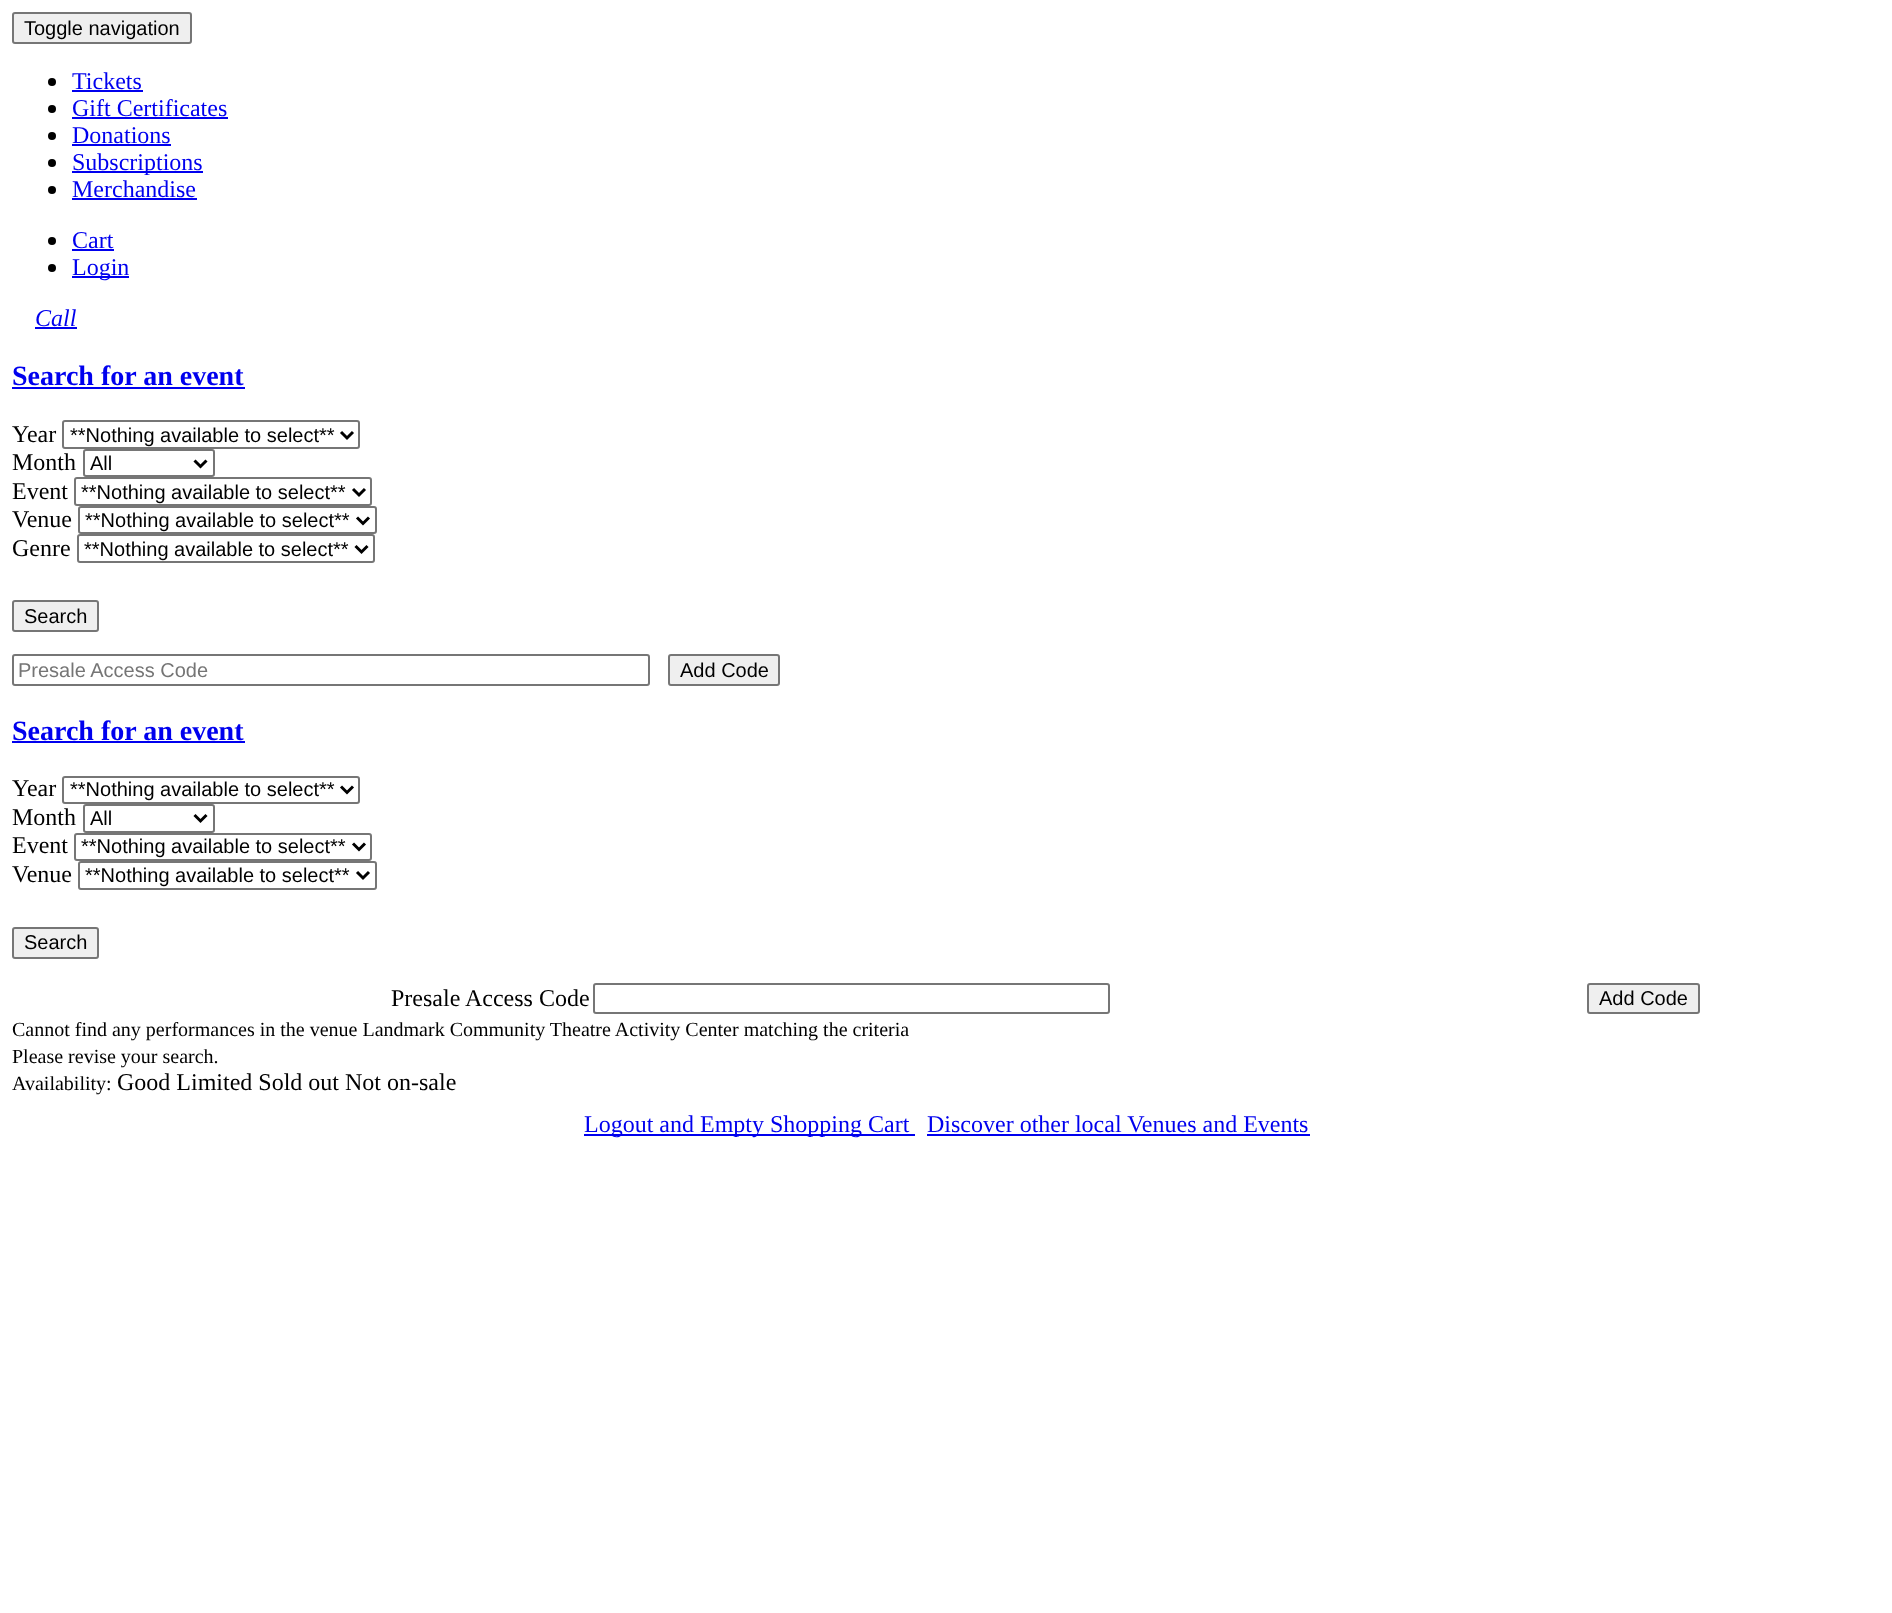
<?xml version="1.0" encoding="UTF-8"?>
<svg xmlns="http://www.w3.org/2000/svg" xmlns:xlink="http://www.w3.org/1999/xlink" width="1892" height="1613">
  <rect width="100%" height="100%" fill="#ffffff" />
  <rect x="13" y="13" width="178" height="30" rx="2" fill="#efefef" stroke="#767676" stroke-width="2" />
  <circle cx="52" cy="82" r="4" fill="#000000" />
  <rect x="72" y="90" width="71" height="2" fill="#0000ee" />
  <circle cx="52" cy="109" r="4" fill="#000000" />
  <rect x="72" y="117" width="156" height="2" fill="#0000ee" />
  <circle cx="52" cy="136" r="4" fill="#000000" />
  <rect x="72" y="144" width="99" height="2" fill="#0000ee" />
  <circle cx="52" cy="163" r="4" fill="#000000" />
  <rect x="72" y="171" width="131" height="2" fill="#0000ee" />
  <circle cx="52" cy="190" r="4" fill="#000000" />
  <rect x="72" y="198" width="125" height="2" fill="#0000ee" />
  <circle cx="52" cy="241" r="4" fill="#000000" />
  <rect x="72" y="249" width="42" height="2" fill="#0000ee" />
  <circle cx="52" cy="268" r="4" fill="#000000" />
  <rect x="72" y="276" width="57" height="2" fill="#0000ee" />
  <rect x="35" y="327" width="42" height="2" fill="#0000ee" />
  <rect x="12" y="387" width="233" height="2" fill="#0000ee" />
  <rect x="63" y="421" width="296" height="27" rx="2" fill="none" stroke="#767676" stroke-width="2" />
  <path d="M 341 432 l 6 6 l 6 -6" fill="none" stroke="#000000" stroke-width="3" />
  <rect x="84" y="450" width="130" height="26" rx="2" fill="none" stroke="#767676" stroke-width="2" />
  <path d="M 194.5 460.5 l 6 6 l 6 -6" fill="none" stroke="#000000" stroke-width="3" />
  <rect x="75" y="478" width="296" height="27" rx="2" fill="none" stroke="#767676" stroke-width="2" />
  <path d="M 353 489 l 6 6 l 6 -6" fill="none" stroke="#000000" stroke-width="3" />
  <rect x="79" y="507" width="297" height="26" rx="2" fill="none" stroke="#767676" stroke-width="2" />
  <path d="M 357 517.5 l 6 6 l 6 -6" fill="none" stroke="#000000" stroke-width="3" />
  <rect x="78" y="535" width="296" height="27" rx="2" fill="none" stroke="#767676" stroke-width="2" />
  <path d="M 355.5 546 l 6 6 l 6 -6" fill="none" stroke="#000000" stroke-width="3" />
  <rect x="13" y="601" width="85" height="30" rx="2" fill="#efefef" stroke="#767676" stroke-width="2" />
  <rect x="13" y="655" width="636" height="30" rx="2" fill="none" stroke="#767676" stroke-width="2" />
  <rect x="669" y="655" width="110" height="30" rx="2" fill="#efefef" stroke="#767676" stroke-width="2" />
  <rect x="12" y="741" width="233" height="2" fill="#0000ee" />
  <rect x="63" y="777" width="296" height="26" rx="2" fill="none" stroke="#767676" stroke-width="2" />
  <path d="M 341 786.5 l 6 6 l 6 -6" fill="none" stroke="#000000" stroke-width="3" />
  <rect x="84" y="805" width="130" height="27" rx="2" fill="none" stroke="#767676" stroke-width="2" />
  <path d="M 194.5 815 l 6 6 l 6 -6" fill="none" stroke="#000000" stroke-width="3" />
  <rect x="75" y="834" width="296" height="26" rx="2" fill="none" stroke="#767676" stroke-width="2" />
  <path d="M 353 843.5 l 6 6 l 6 -6" fill="none" stroke="#000000" stroke-width="3" />
  <rect x="79" y="862" width="297" height="27" rx="2" fill="none" stroke="#767676" stroke-width="2" />
  <path d="M 357 872 l 6 6 l 6 -6" fill="none" stroke="#000000" stroke-width="3" />
  <rect x="13" y="928" width="85" height="30" rx="2" fill="#efefef" stroke="#767676" stroke-width="2" />
  <rect x="594" y="984" width="515" height="29" rx="2" fill="none" stroke="#767676" stroke-width="2" />
  <rect x="1588" y="984" width="111" height="29" rx="2" fill="#efefef" stroke="#767676" stroke-width="2" />
  <rect x="584" y="1134" width="331" height="2" fill="#0000ee" />
  <rect x="927" y="1134" width="383" height="2" fill="#0000ee" />
  <text x="24" y="35" style="font-family: Liberation Sans; font-size: 20px; fill: #000000">Toggle navigation</text>
  <text x="72" y="89" style="font-family: Liberation Serif; font-size: 24px; fill: #0000ee">Tickets</text>
  <text x="72" y="116" style="font-family: Liberation Serif; font-size: 24px; fill: #0000ee">Gift Certificates</text>
  <text x="72" y="143" style="font-family: Liberation Serif; font-size: 24px; fill: #0000ee">Donations</text>
  <text x="72" y="170" style="font-family: Liberation Serif; font-size: 24px; fill: #0000ee">Subscriptions</text>
  <text x="72" y="197" style="font-family: Liberation Serif; font-size: 24px; fill: #0000ee">Merchandise</text>
  <text x="72" y="248" style="font-family: Liberation Serif; font-size: 24px; fill: #0000ee">Cart</text>
  <text x="72" y="275" style="font-family: Liberation Serif; font-size: 24px; fill: #0000ee">Login</text>
  <text x="35" y="326" style="font-family: Liberation Serif; font-size: 24px; font-style: italic; fill: #0000ee">Call</text>
  <text x="12" y="385" style="font-family: Liberation Serif; font-size: 28px; font-weight: bold; fill: #0000ee">Search for an event</text>
  <text x="12" y="442" style="font-family: Liberation Serif; font-size: 24px; fill: #000000">Year</text>
  <text x="70" y="442" style="font-family: Liberation Sans; font-size: 20px; fill: #000000">**Nothing available to select**</text>
  <text x="12" y="470" style="font-family: Liberation Serif; font-size: 24px; fill: #000000">Month</text>
  <text x="90" y="470" style="font-family: Liberation Sans; font-size: 20px; fill: #000000">All</text>
  <text x="12" y="499" style="font-family: Liberation Serif; font-size: 24px; fill: #000000">Event</text>
  <text x="81" y="499" style="font-family: Liberation Sans; font-size: 20px; fill: #000000">**Nothing available to select**</text>
  <text x="12" y="527" style="font-family: Liberation Serif; font-size: 24px; fill: #000000">Venue</text>
  <text x="85" y="527" style="font-family: Liberation Sans; font-size: 20px; fill: #000000">**Nothing available to select**</text>
  <text x="12" y="556" style="font-family: Liberation Serif; font-size: 24px; fill: #000000">Genre</text>
  <text x="84" y="556" style="font-family: Liberation Sans; font-size: 20px; fill: #000000">**Nothing available to select**</text>
  <text x="24" y="623" style="font-family: Liberation Sans; font-size: 20px; fill: #000000">Search</text>
  <text x="18" y="677" style="font-family: Liberation Sans; font-size: 20px; fill: #757575">Presale Access Code</text>
  <text x="680" y="677" style="font-family: Liberation Sans; font-size: 20px; fill: #000000">Add Code</text>
  <text x="12" y="740" style="font-family: Liberation Serif; font-size: 28px; font-weight: bold; fill: #0000ee">Search for an event</text>
  <text x="12" y="796" style="font-family: Liberation Serif; font-size: 24px; fill: #000000">Year</text>
  <text x="70" y="796" style="font-family: Liberation Sans; font-size: 20px; fill: #000000">**Nothing available to select**</text>
  <text x="12" y="825" style="font-family: Liberation Serif; font-size: 24px; fill: #000000">Month</text>
  <text x="90" y="825" style="font-family: Liberation Sans; font-size: 20px; fill: #000000">All</text>
  <text x="12" y="853" style="font-family: Liberation Serif; font-size: 24px; fill: #000000">Event</text>
  <text x="81" y="853" style="font-family: Liberation Sans; font-size: 20px; fill: #000000">**Nothing available to select**</text>
  <text x="12" y="882" style="font-family: Liberation Serif; font-size: 24px; fill: #000000">Venue</text>
  <text x="85" y="882" style="font-family: Liberation Sans; font-size: 20px; fill: #000000">**Nothing available to select**</text>
  <text x="24" y="949" style="font-family: Liberation Sans; font-size: 20px; fill: #000000">Search</text>
  <text x="391" y="1006" style="font-family: Liberation Serif; font-size: 24px; fill: #000000">Presale Access Code</text>
  <text x="1599" y="1005" style="font-family: Liberation Sans; font-size: 20px; fill: #000000">Add Code</text>
  <text x="12" y="1036" style="font-family: Liberation Serif; font-size: 20px; fill: #000000">Cannot find any performances in the venue Landmark Community Theatre Activity Center matching the criteria</text>
  <text x="12" y="1063" style="font-family: Liberation Serif; font-size: 20px; fill: #000000">Please revise your search.</text>
  <text x="12" y="1090" style="font-family: Liberation Serif; font-size: 20px; fill: #000000">Availability:</text>
  <text x="117" y="1090" style="font-family: Liberation Serif; font-size: 24px; fill: #000000">Good Limited Sold out Not on-sale</text>
  <text x="584" y="1132" style="font-family: Liberation Serif; font-size: 24px; fill: #0000ee">Logout and Empty Shopping Cart</text>
  <text x="927" y="1132" style="font-family: Liberation Serif; font-size: 24px; fill: #0000ee">Discover other local Venues and Events</text>
</svg>
